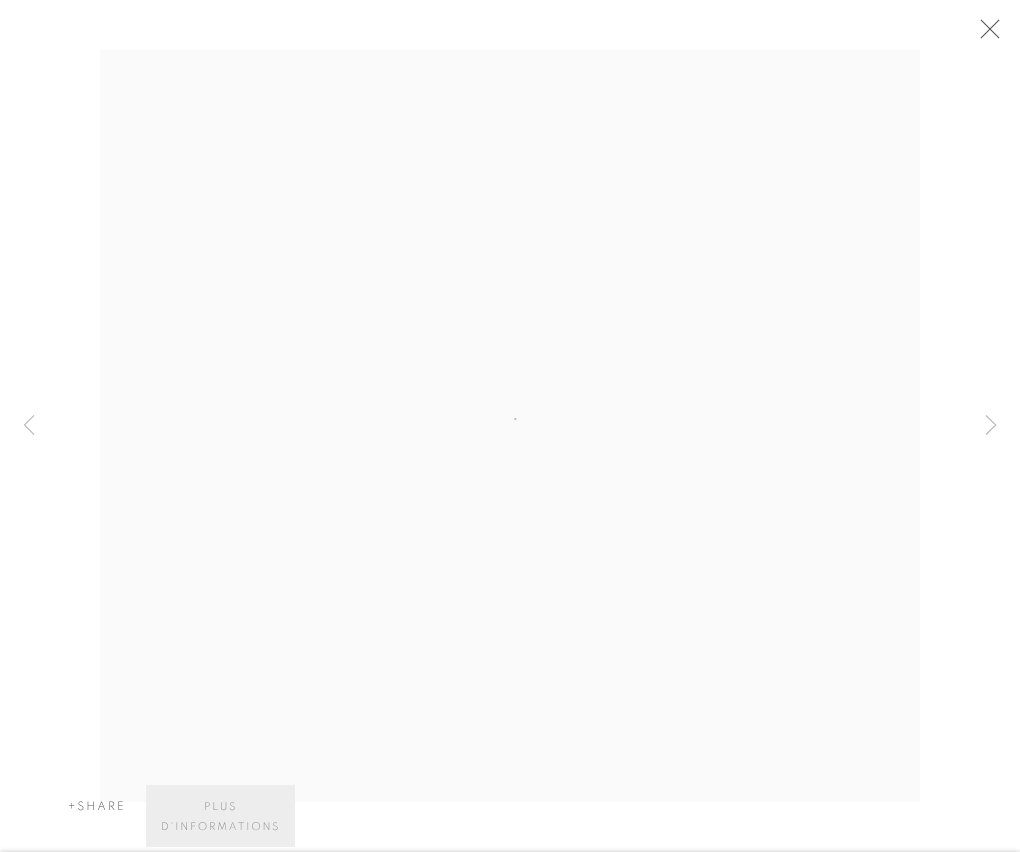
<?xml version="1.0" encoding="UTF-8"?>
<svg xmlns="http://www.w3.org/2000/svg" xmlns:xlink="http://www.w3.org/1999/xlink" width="1020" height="852">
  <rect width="100%" height="100%" fill="#ffffff" />
  <image x="980" y="19" width="20" height="20" xlink:href="image1.png" />
  <image x="24" y="415" width="11" height="20" xlink:href="image2.png" />
  <path d="M 996.5 425 l -10 -10 l -1 1 l 9.5 9 l -9.5 9 l 1 1 z" fill="#b9b9b9" />
  <rect x="100" y="50" width="820" height="752" fill="#fafafa" />
  <path d="M 515 419 h 0.5" fill="none" stroke="#bbbbbb" stroke-width="1.8" stroke-linecap="round" />
  <rect x="146" y="785" width="149" height="62" fill="#ededed" />
  <rect y="852" width="1020" height="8" fill="#000000" fill-opacity="0.23" filter="blur(2.5px)" />
  <text x="68" y="810" style="font-family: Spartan; font-size: 12px; font-weight: 300; letter-spacing: 2px; fill: #585858">+SHARE</text>
  <text x="204" y="810" style="font-family: Spartan; font-size: 11px; font-weight: 300; letter-spacing: 1.75px; fill: #919191">PLUS</text>
  <text x="161" y="830" style="font-family: Spartan; font-size: 11px; font-weight: 300; letter-spacing: 1.75px; fill: #919191">D'INFORMATIONS</text>
</svg>
